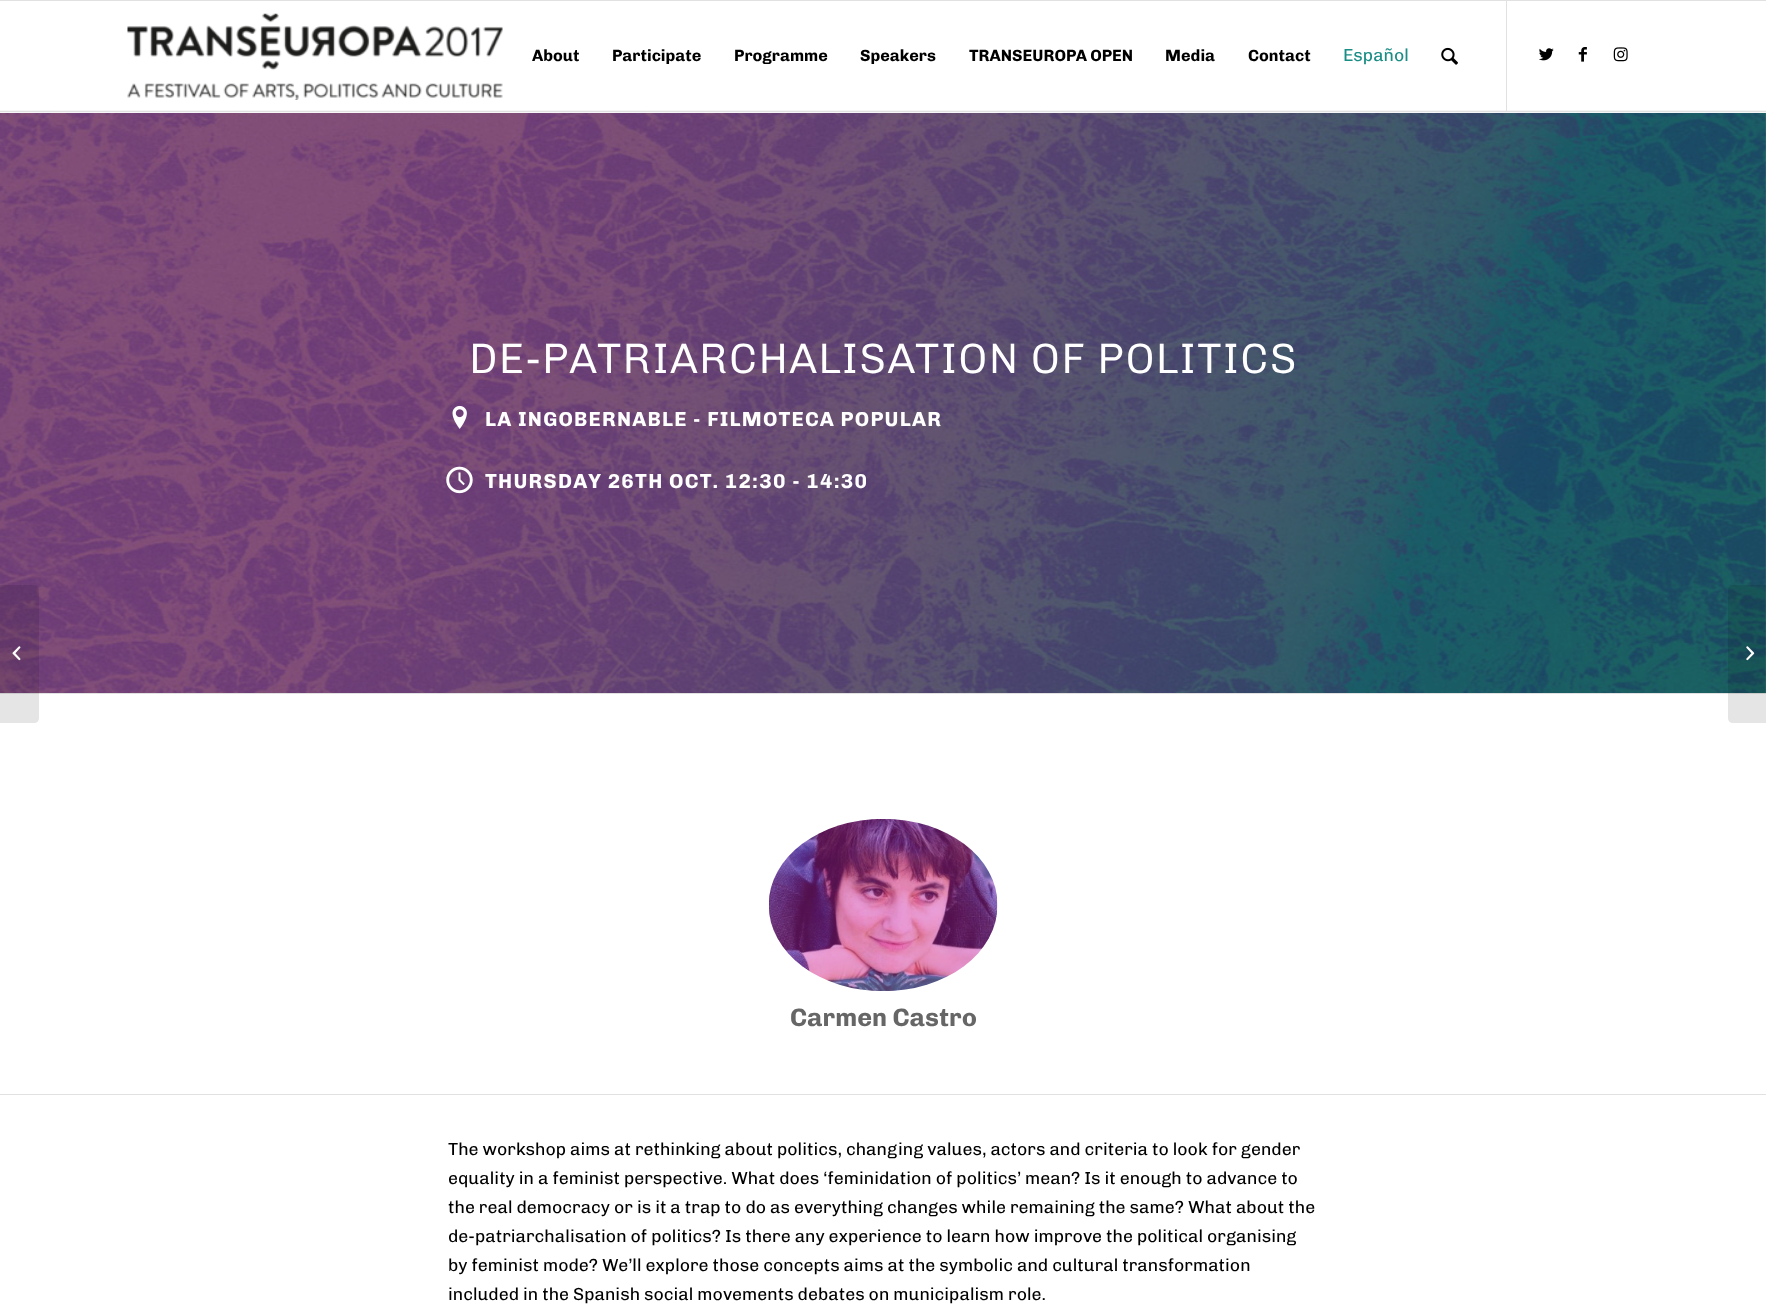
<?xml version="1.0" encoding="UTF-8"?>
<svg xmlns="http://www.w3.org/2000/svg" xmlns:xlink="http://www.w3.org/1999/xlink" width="1766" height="1306">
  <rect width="100%" height="100%" fill="#ffffff" />
  <rect width="1766" height="1" fill="#e1e1e1" />
  <image x="0" y="110" width="1766" height="583" xlink:href="image6.png" />
  <rect y="110" width="1766" height="3" fill="#ffffff" fill-opacity="0.95" />
  <rect y="111" width="1766" height="1" fill="#e1e1e1" />
  <image x="127" y="13" width="376" height="87" xlink:href="image1.png" />
  <rect x="1506" y="1" width="1" height="110" fill="#e1e1e1" />
  <image x="1441" y="47" width="17" height="18" xlink:href="image2.png" />
  <image x="1539" y="48" width="15" height="13" xlink:href="image3.png" />
  <image x="1578" y="47" width="9" height="15" xlink:href="image4.png" />
  <image x="1613" y="47" width="15" height="15" xlink:href="image5.png" />
  <image x="452" y="405" width="15" height="24" xlink:href="image7.png" />
  <image x="446" y="466" width="27" height="28" xlink:href="image8.png" />
  <rect y="693" width="1766" height="1" fill="#e1e1e1" />
  <path d="M 0 585 h 34 c 3 0 5 2 5 5 v 128 c 0 3 -2 5 -5 5 h -34 z" fill="#000000" fill-opacity="0.1" />
  <image x="12" y="646" width="9" height="15" xlink:href="image9.png" />
  <path d="M 1733 585 h 33 v 138 h -33 c -3 0 -5 -2 -5 -5 v -128 c 0 -3 2 -5 5 -5 z" fill="#000000" fill-opacity="0.1" />
  <image x="1746" y="646" width="9" height="15" xlink:href="image10.png" />
  <image x="769" y="819" width="229" height="172" xlink:href="image11.png" />
  <rect y="1094" width="1766" height="1" fill="#e1e1e1" />
  <text x="532" y="61" style="font-family: Chivo; font-size: 16.25px; font-weight: bold; fill: #000000">About</text>
  <text x="612" y="61" style="font-family: Chivo; font-size: 16.25px; font-weight: bold; fill: #000000">Participate</text>
  <text x="734" y="61" style="font-family: Chivo; font-size: 16.25px; font-weight: bold; fill: #000000">Programme</text>
  <text x="860" y="61" style="font-family: Chivo; font-size: 16.25px; font-weight: bold; fill: #000000">Speakers</text>
  <text x="969" y="61" style="font-family: Chivo; font-size: 16.25px; font-weight: bold; fill: #000000">TRANSEUROPA OPEN</text>
  <text x="1165" y="61" style="font-family: Chivo; font-size: 16.25px; font-weight: bold; fill: #000000">Media</text>
  <text x="1248" y="61" style="font-family: Chivo; font-size: 16.25px; font-weight: bold; fill: #000000">Contact</text>
  <text x="1343" y="61" style="font-family: Chivo; font-size: 17.5px; fill: #1a8d85">Español</text>
  <text x="469" y="373" style="font-family: Chivo; font-size: 42.5px; font-weight: 300; letter-spacing: 1.25px; fill: #ffffff">DE-PATRIARCHALISATION OF POLITICS</text>
  <text x="485" y="426" style="font-family: Chivo; font-size: 20.3px; font-weight: bold; letter-spacing: 1.25px; fill: #ffffff">LA INGOBERNABLE - FILMOTECA POPULAR</text>
  <text x="485" y="488" style="font-family: Chivo; font-size: 20.3px; font-weight: bold; letter-spacing: 1.25px; fill: #ffffff">THURSDAY 26TH OCT. 12:30 - 14:30</text>
  <text x="790" y="1026" style="font-family: Chivo; font-size: 25.25px; font-weight: bold; fill: #666666">Carmen Castro</text>
  <text x="448" y="1155" style="font-family: Chivo; font-size: 17.5px; fill: #000000">The workshop aims at rethinking about politics, changing values, actors and criteria to look for gender</text>
  <text x="448" y="1184" style="font-family: Chivo; font-size: 17.5px; fill: #000000">equality in a feminist perspective. What does ‘feminidation of politics’ mean? Is it enough to advance to</text>
  <text x="448" y="1213" style="font-family: Chivo; font-size: 17.5px; fill: #000000">the real democracy or is it a trap to do as everything changes while remaining the same? What about the</text>
  <text x="448" y="1242" style="font-family: Chivo; font-size: 17.5px; fill: #000000">de-patriarchalisation of politics? Is there any experience to learn how improve the political organising</text>
  <text x="448" y="1271" style="font-family: Chivo; font-size: 17.5px; fill: #000000">by feminist mode? We’ll explore those concepts aims at the symbolic and cultural transformation</text>
  <text x="448" y="1300" style="font-family: Chivo; font-size: 17.5px; fill: #000000">included in the Spanish social movements debates on municipalism role.</text>
</svg>
